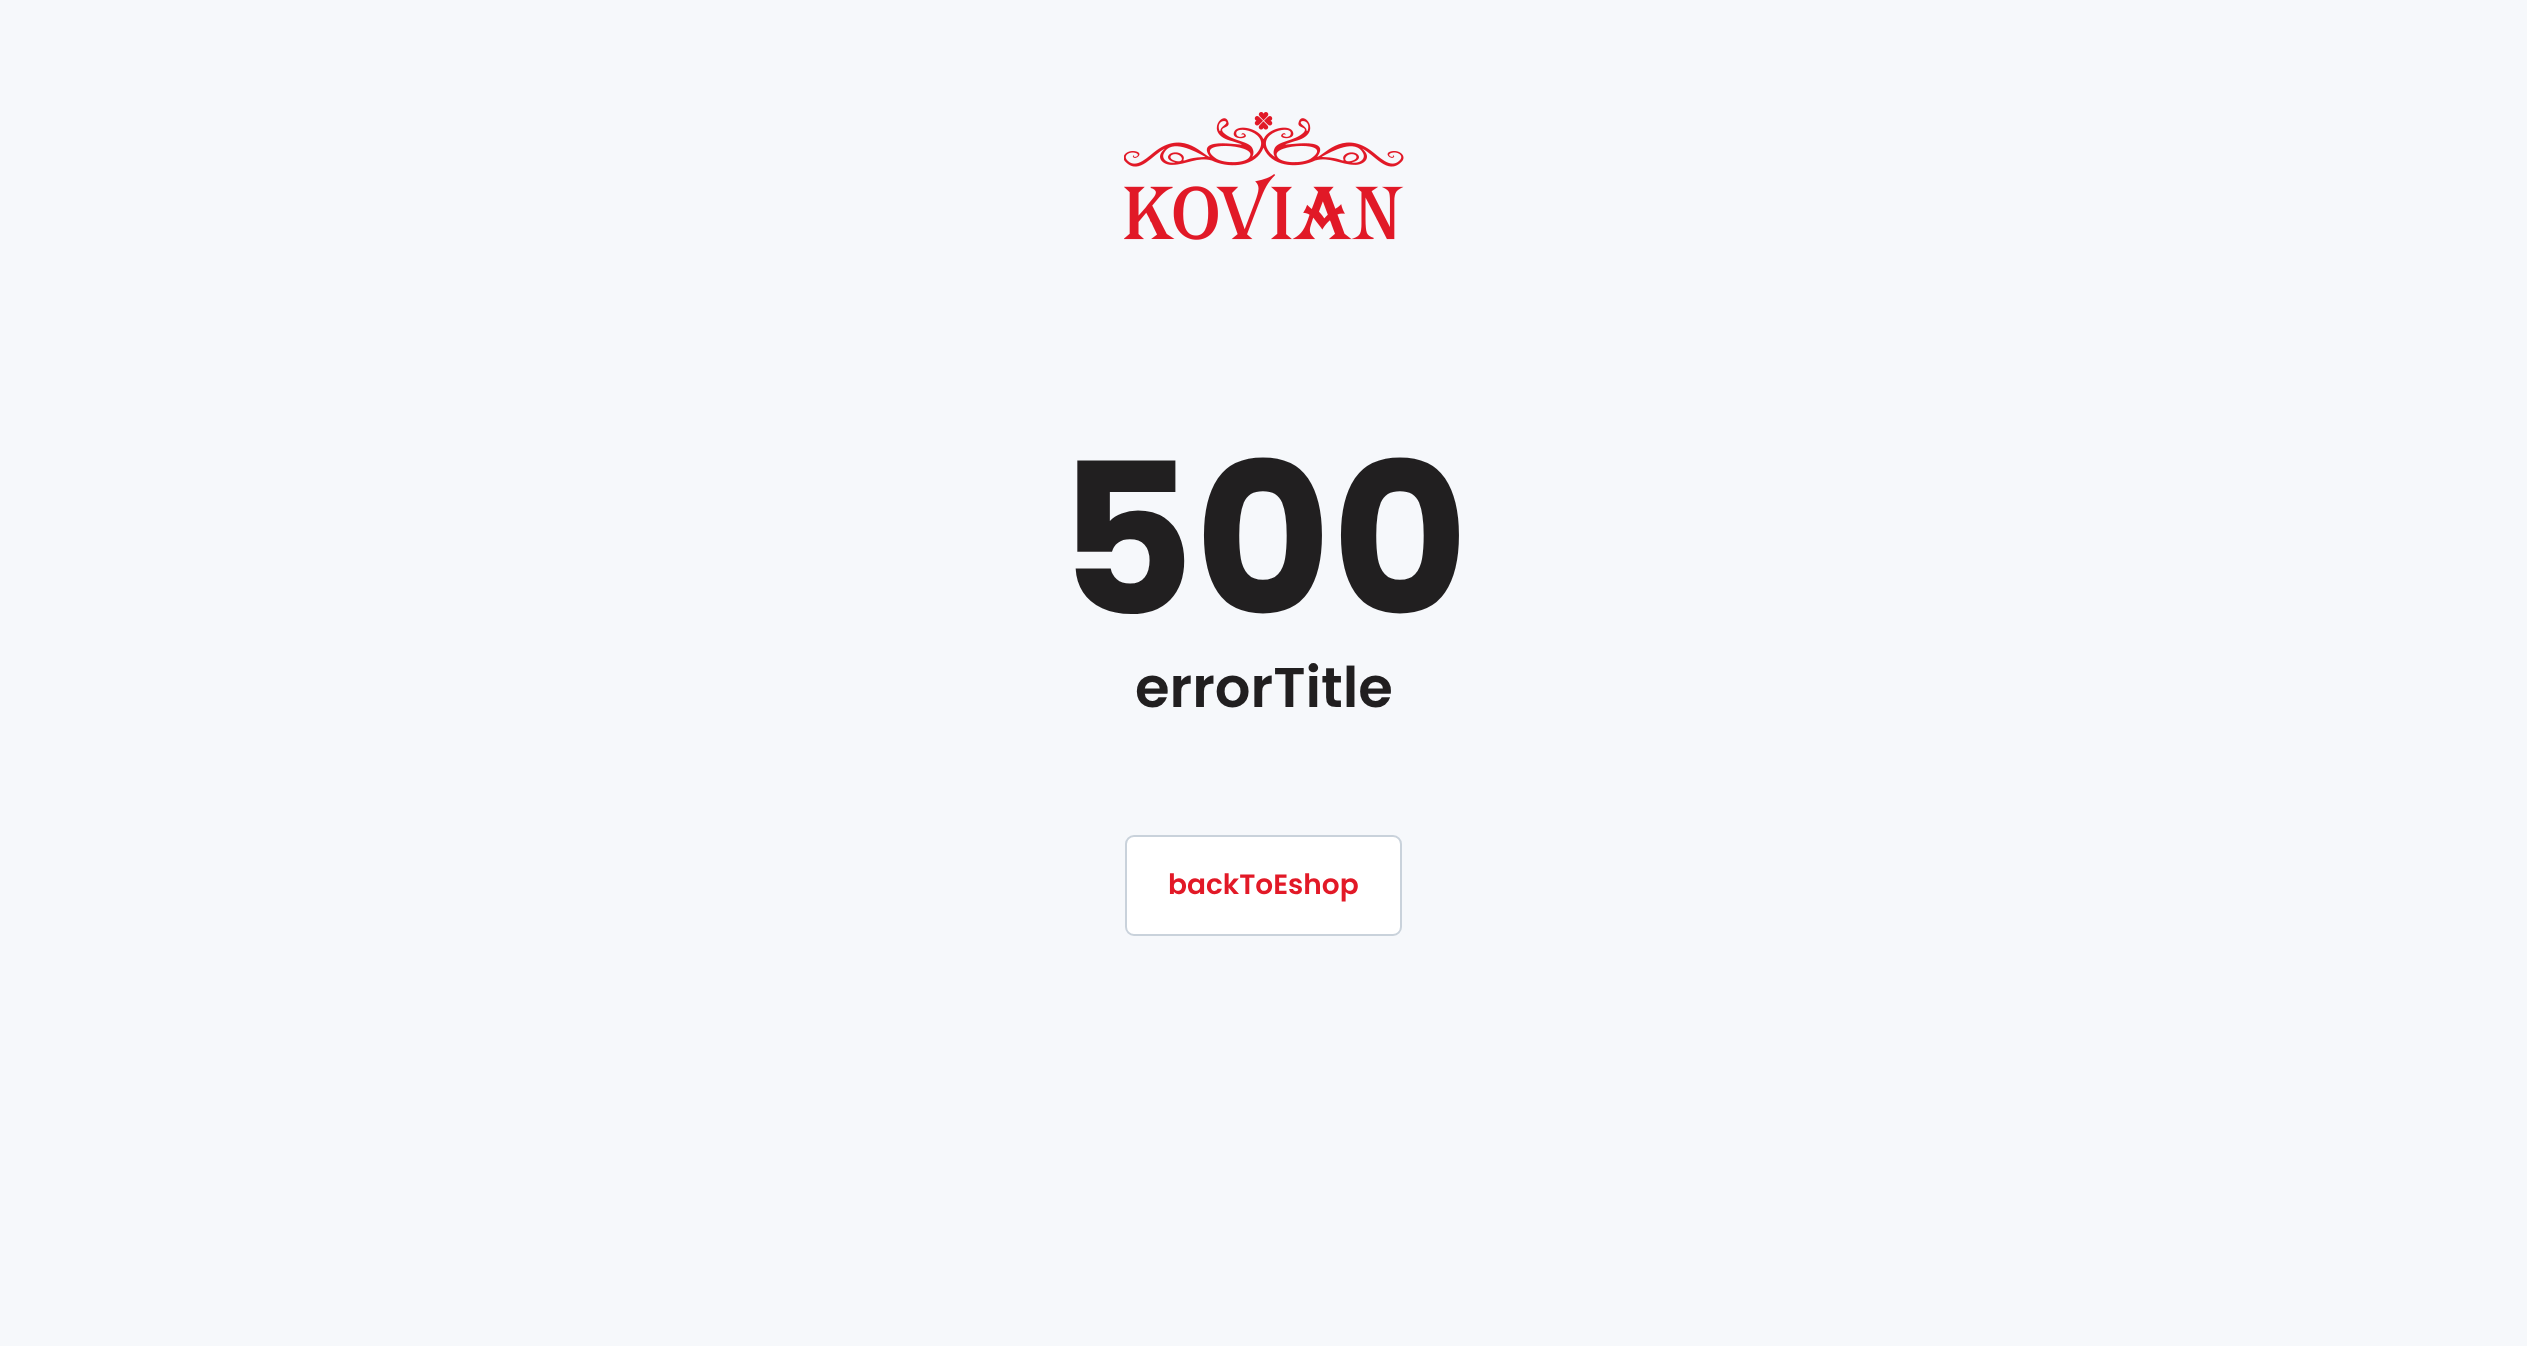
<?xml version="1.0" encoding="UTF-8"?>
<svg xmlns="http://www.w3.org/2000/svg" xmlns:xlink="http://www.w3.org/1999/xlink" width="2527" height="1346">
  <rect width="100%" height="100%" fill="#f6f8fb" />
  <image x="1124" y="112" width="280" height="128" xlink:href="image1.png" />
  <rect x="1126" y="836" width="275" height="99" rx="8" fill="#ffffff" stroke="#c9d2db" stroke-width="2" />
  <text x="1058" y="614" style="font-family: Poppins; font-size: 210px; font-weight: bold; fill: #211f20">500</text>
  <text x="1135" y="707" style="font-family: Poppins; font-size: 56px; font-weight: 600; fill: #211f20">errorTitle</text>
  <text x="1168" y="894" style="font-family: Poppins; font-size: 28px; font-weight: 600; fill: #e21927">backToEshop</text>
</svg>
